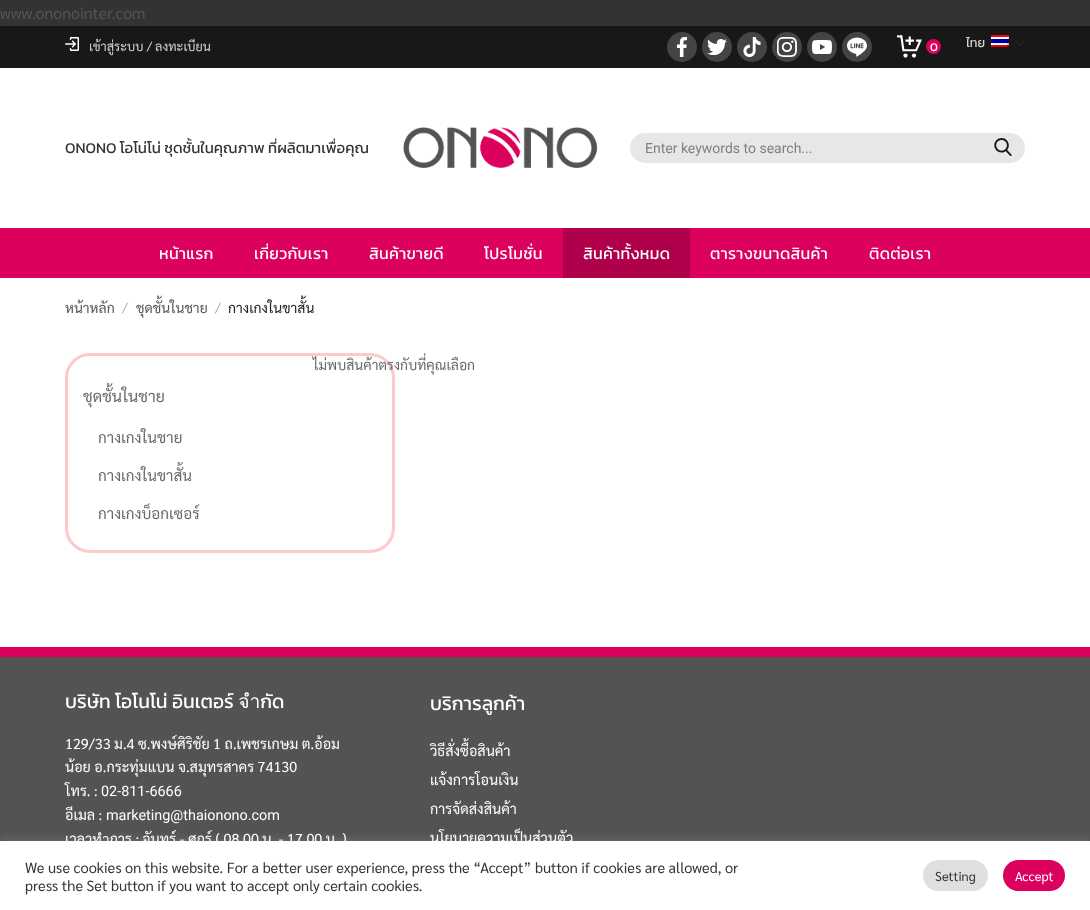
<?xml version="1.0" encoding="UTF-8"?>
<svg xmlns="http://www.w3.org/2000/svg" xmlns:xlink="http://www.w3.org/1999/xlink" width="1090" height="910">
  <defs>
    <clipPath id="clip1"><rect x="254" y="228" width="75" height="50" /></clipPath>
    <clipPath id="clip2"><rect x="369" y="228" width="75" height="50" /></clipPath>
    <clipPath id="clip3"><rect x="583" y="228" width="87" height="50" /></clipPath>
    <clipPath id="clip4"><rect x="869" y="228" width="62" height="50" /></clipPath>
  </defs>
  <rect width="100%" height="100%" fill="#333333" />
  <rect y="68" width="1090" height="579" fill="#ffffff" />
  <rect y="26" width="1090" height="42" fill="#181818" />
  <image x="65" y="37" width="14" height="14" xlink:href="image1.png" />
  <circle cx="682" cy="47" r="15" fill="#444444" />
  <image x="677" y="37" width="10" height="20" xlink:href="image2.png" />
  <circle cx="717" cy="47" r="15" fill="#444444" />
  <image x="707" y="39" width="20" height="16" xlink:href="image3.png" />
  <circle cx="752" cy="47" r="15" fill="#444444" />
  <image x="743" y="37" width="18" height="20" xlink:href="image4.png" />
  <circle cx="787" cy="47" r="15" fill="#444444" />
  <image x="777" y="37" width="20" height="20" xlink:href="image5.png" />
  <circle cx="822" cy="47" r="15" fill="#444444" />
  <image x="812" y="40" width="20" height="14" xlink:href="image6.png" />
  <circle cx="857" cy="47" r="15" fill="#444444" />
  <image x="847" y="37" width="20" height="20" xlink:href="image7.png" />
  <image x="897" y="35" width="25" height="23" xlink:href="image8.png" />
  <circle cx="933.5" cy="46.5" r="7.5" fill="#dd015e" />
  <image x="991" y="35" width="18" height="12" xlink:href="image9.png" />
  <image x="1016" y="41" width="9" height="5" xlink:href="image10.png" />
  <image x="403" y="127" width="195" height="41" xlink:href="image11.png" />
  <rect x="630" y="133" width="395" height="30" rx="15" fill="#e7e7e7" />
  <image x="994" y="138" width="18" height="18" xlink:href="image12.png" />
  <rect y="228" width="1090" height="50" fill="#dd015e" />
  <rect x="563" y="228" width="127" height="50" fill="#b1004b" />
  <rect x="66.5" y="354.5" width="327" height="197" rx="23.5" fill="none" stroke="#ffc8cd" stroke-width="3" />
  <rect y="657" width="1090" height="184" fill="#535353" />
  <rect y="647" width="1090" height="10" fill="#dd015e" />
  <rect y="840" width="1090" height="69" fill="#acabab" fill-opacity="0.3" filter="blur(5px)" />
  <rect y="841" width="1090" height="69" fill="#ffffff" />
  <rect x="923" y="860" width="65" height="31" rx="15.5" fill="#dedfe0" />
  <rect x="1003" y="860" width="62" height="31" rx="15.5" fill="#dd015e" />
  <text x="0" y="19" style="font-family: Sarabun; font-size: 16px; fill: #555555">www.ononointer.com</text>
  <text x="89" y="51" style="font-family: Sarabun; font-size: 12.75px; fill: #d1d1d1">เข้าสู่ระบบ / ลงทะเบียน</text>
  <text x="930" y="51" style="font-family: Kanit; font-size: 12px; fill: #ffffff">0</text>
  <text x="966" y="47" style="font-family: Kanit; font-size: 12.75px; fill: #d1d1d1">ไทย</text>
  <text x="65" y="153" style="font-family: Kanit; font-size: 15px; fill: #333333">ONONO โอโน่โน่ ชุดชั้นในคุณภาพ ที่ผลิตมาเพื่อคุณ</text>
  <text x="645" y="153" style="font-family: Roboto; font-size: 14px; fill: #808080">Enter keywords to search...</text>
  <text x="159" y="259" style="font-family: Kanit; font-size: 16px; letter-spacing: 0.3px; fill: #ffffff">หน้าแรก</text>
  <g clip-path="url(#clip1)">
    <text x="254" y="259" style="font-family: Kanit; font-size: 16px; letter-spacing: 0.3px; fill: #ffffff">เกี่ยวกับเรา</text>
  </g>
  <g clip-path="url(#clip2)">
    <text x="369" y="259" style="font-family: Kanit; font-size: 16px; letter-spacing: 0.3px; fill: #ffffff">สินค้าขายดี</text>
  </g>
  <text x="484" y="259" style="font-family: Kanit; font-size: 16px; letter-spacing: 0.3px; fill: #ffffff">โปรโมชั่น</text>
  <g clip-path="url(#clip3)">
    <text x="583" y="259" style="font-family: Kanit; font-size: 16px; letter-spacing: 0.3px; fill: #ffffff">สินค้าทั้งหมด</text>
  </g>
  <text x="710" y="259" style="font-family: Kanit; font-size: 16px; letter-spacing: 0.3px; fill: #ffffff">ตารางขนาดสินค้า</text>
  <g clip-path="url(#clip4)">
    <text x="869" y="259" style="font-family: Kanit; font-size: 16px; letter-spacing: 0.3px; fill: #ffffff">ติดต่อเรา</text>
  </g>
  <text x="65" y="313" style="font-family: Sarabun; font-size: 14px; fill: #555555">หน้าหลัก</text>
  <text x="122" y="313" style="font-family: Sarabun; font-size: 14px; fill: #b2b2b2">/</text>
  <text x="136" y="313" style="font-family: Sarabun; font-size: 14px; fill: #555555">ชุดชั้นในชาย</text>
  <text x="215" y="313" style="font-family: Sarabun; font-size: 14px; fill: #b2b2b2">/</text>
  <text x="228" y="313" style="font-family: Sarabun; font-size: 14px; fill: #222222">กางเกงในขาสั้น</text>
  <text x="313" y="370" style="font-family: Sarabun; font-size: 14px; fill: #686a6c">ไม่พบสินค้าตรงกับที่คุณเลือก</text>
  <text x="83" y="402" style="font-family: Sarabun; font-size: 16px; fill: #686a6c">ชุดชั้นในชาย</text>
  <text x="98" y="443" style="font-family: Sarabun; font-size: 15.25px; fill: #686a6c">กางเกงในชาย</text>
  <text x="98" y="481" style="font-family: Sarabun; font-size: 15.25px; fill: #686a6c">กางเกงในขาสั้น</text>
  <text x="98" y="519" style="font-family: Sarabun; font-size: 15.25px; fill: #686a6c">กางเกงบ็อกเซอร์</text>
  <text x="65" y="708" style="font-family: Kanit; font-size: 19.25px; fill: #ffffff">บริษัท โอโนโน่ อินเตอร์ จำกัด</text>
  <text x="65" y="749" style="font-family: Sarabun; font-size: 14.4px; fill: #ffffff">129/33 ม.4 ซ.พงษ์ศิริชัย 1 ถ.เพชรเกษม ต.อ้อม</text>
  <text x="65" y="772" style="font-family: Sarabun; font-size: 14.4px; fill: #ffffff">น้อย อ.กระทุ่มแบน จ.สมุทรสาคร 74130</text>
  <text x="65" y="796" style="font-family: Sarabun; font-size: 14.4px; fill: #ffffff">โทร. :</text>
  <text x="101" y="796" style="font-family: Roboto; font-size: 14.4px; fill: #ffffff">02-811-6666</text>
  <text x="65" y="820" style="font-family: Sarabun; font-size: 14.4px; fill: #ffffff">อีเมล :</text>
  <text x="106" y="820" style="font-family: Roboto; font-size: 14.4px; fill: #ffffff">marketing@thaionono.com</text>
  <text x="65" y="844" style="font-family: Sarabun; font-size: 14.4px; fill: #ffffff">เวลาทำการ : จันทร์ - ศุกร์ ( 08.00 น. - 17.00 น. )</text>
  <text x="430" y="710" style="font-family: Kanit; font-size: 19.25px; fill: #ffffff">บริการลูกค้า</text>
  <text x="430" y="756" style="font-family: Sarabun; font-size: 14.4px; fill: #ffffff">วิธีสั่งซื้อสินค้า</text>
  <text x="430" y="785" style="font-family: Sarabun; font-size: 14.4px; fill: #ffffff">แจ้งการโอนเงิน</text>
  <text x="430" y="814" style="font-family: Sarabun; font-size: 14.4px; fill: #ffffff">การจัดส่งสินค้า</text>
  <text x="430" y="843" style="font-family: Sarabun; font-size: 14.4px; fill: #ffffff">นโยบายความเป็นส่วนตัว</text>
  <text x="25" y="873" style="font-family: Sarabun; font-size: 14.65px; fill: #333333">We use cookies on this website. For a better user experience, press the “Accept” button if cookies are allowed, or</text>
  <text x="25" y="891" style="font-family: Sarabun; font-size: 14.65px; fill: #333333">press the Set button if you want to accept only certain cookies.</text>
  <text x="935" y="881" style="font-family: Sarabun; font-size: 13px; fill: #333333">Setting</text>
  <text x="1015" y="881" style="font-family: Sarabun; font-size: 13px; fill: #ffffff">Accept</text>
</svg>
